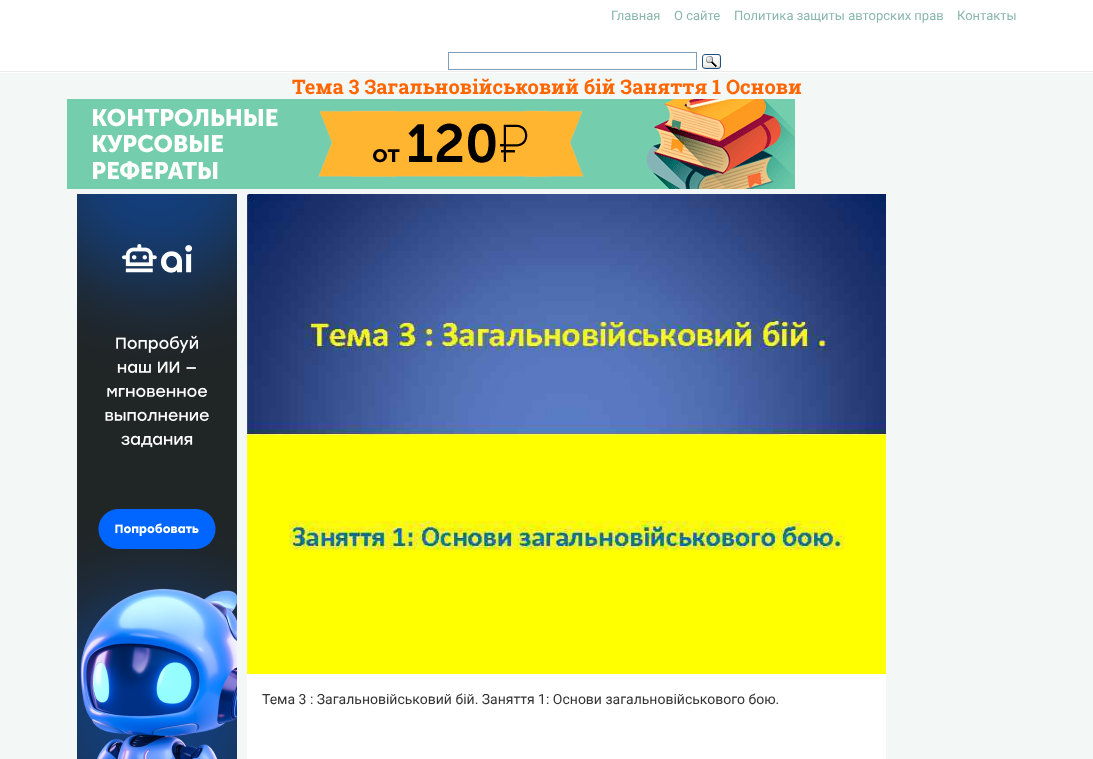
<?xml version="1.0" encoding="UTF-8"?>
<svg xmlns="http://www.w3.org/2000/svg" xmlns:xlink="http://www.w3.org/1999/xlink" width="1093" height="759">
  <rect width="100%" height="100%" fill="#ffffff" />
  <rect y="71" width="1093" height="1" fill="#ebebeb" />
  <rect x="448.5" y="52.5" width="248" height="17" fill="none" stroke="#7f9db9" />
  <image x="702" y="54" width="19" height="15" xlink:href="image1.png" />
  <rect y="73" width="1093" height="686" fill="#f3f7f6" />
  <image x="67" y="99" width="728" height="90" xlink:href="image2.png" />
  <image x="77" y="194" width="160" height="565" xlink:href="image3.png" />
  <rect x="247" y="194" width="639" height="565" fill="#ffffff" />
  <image x="247" y="194" width="639" height="480" xlink:href="image4.png" />
  <text x="611" y="20" style="font-family: Roboto; font-size: 13px; fill: #8ab7ad">Главная</text>
  <text x="674" y="20" style="font-family: Roboto; font-size: 13px; fill: #8ab7ad">О сайте</text>
  <text x="734" y="20" style="font-family: Roboto; font-size: 13px; fill: #8ab7ad">Политика защиты авторских прав</text>
  <text x="957" y="20" style="font-family: Roboto; font-size: 13px; fill: #8ab7ad">Контакты</text>
  <text x="292" y="94" style="font-family: Roboto Slab; font-size: 20px; font-weight: bold; fill: #ff6600">Тема 3 Загальновійськовий бій Заняття 1 Основи</text>
  <text x="262" y="704" style="font-family: Roboto; font-size: 14px; fill: #333333">Тема 3 : Загальновійськовий бій. Заняття 1: Основи загальновійськового бою.</text>
</svg>
